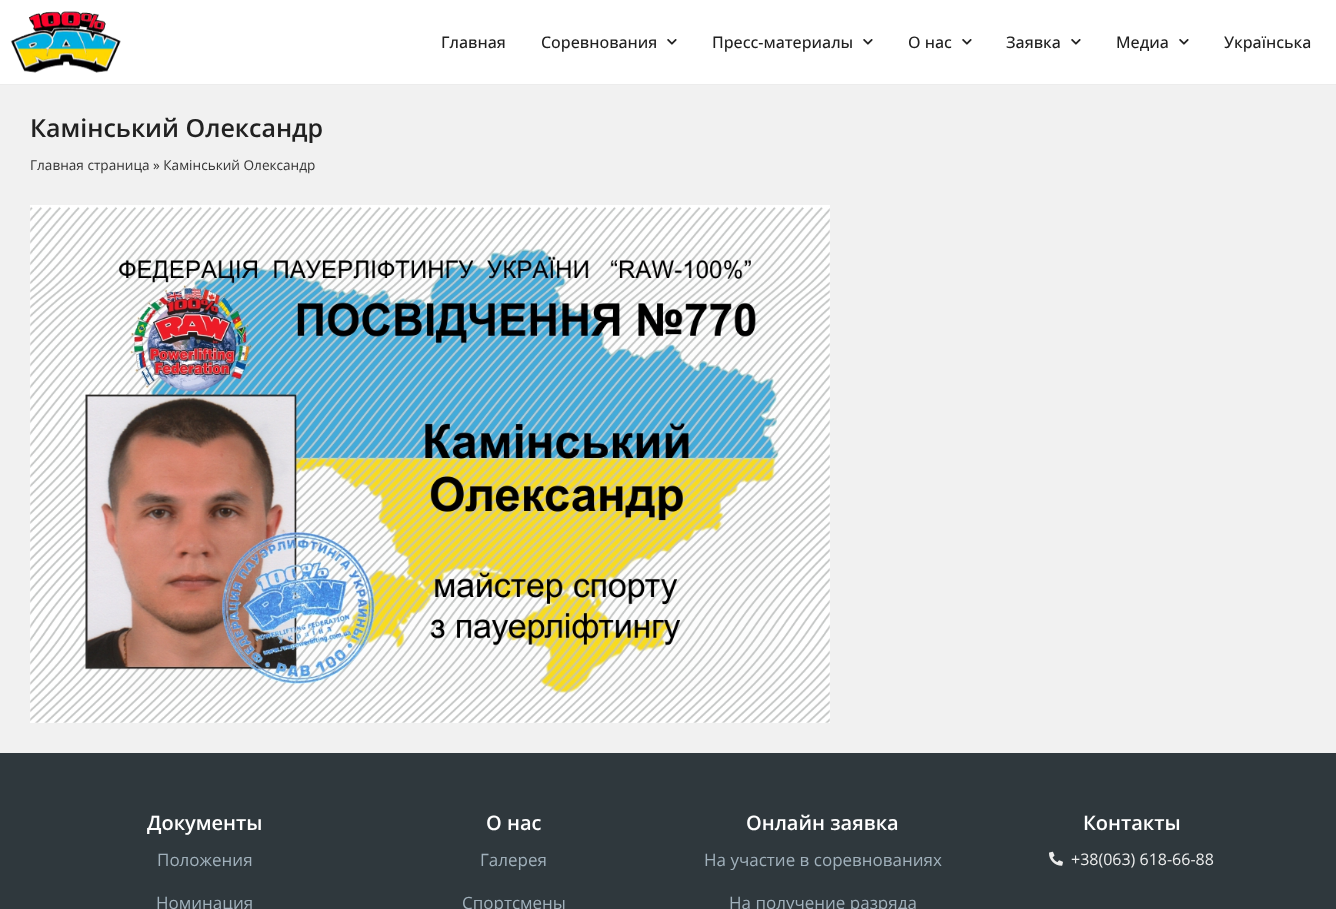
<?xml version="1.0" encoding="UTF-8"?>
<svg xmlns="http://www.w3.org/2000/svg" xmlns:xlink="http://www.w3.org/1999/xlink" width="1336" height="909">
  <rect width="100%" height="100%" fill="#f1f1f1" />
  <rect width="1336" height="84" fill="#ffffff" />
  <rect y="84" width="1336" height="1" fill="#ececec" />
  <image x="10" y="11" width="111" height="62" xlink:href="image1.png" />
  <image x="667" y="39" width="10" height="6" xlink:href="image2.png" />
  <image x="863" y="39" width="10" height="6" xlink:href="image2.png" />
  <image x="962" y="39" width="10" height="6" xlink:href="image2.png" />
  <image x="1071" y="39" width="10" height="6" xlink:href="image2.png" />
  <image x="1179" y="39" width="10" height="6" xlink:href="image2.png" />
  <image x="30" y="205" width="800" height="518" xlink:href="image3.png" />
  <rect y="753" width="1336" height="156" fill="#2f383d" />
  <image x="1049" y="851" width="14" height="15" xlink:href="image4.png" />
  <text x="441" y="48" style="font-family: Open Sans; font-size: 16px; font-weight: 500; fill: #212121">Главная</text>
  <text x="541" y="48" style="font-family: Open Sans; font-size: 16px; font-weight: 500; fill: #212121">Соревнования</text>
  <text x="712" y="48" style="font-family: Open Sans; font-size: 16px; font-weight: 500; fill: #212121">Пресс-материалы</text>
  <text x="908" y="48" style="font-family: Open Sans; font-size: 16px; font-weight: 500; fill: #212121">О нас</text>
  <text x="1006" y="48" style="font-family: Open Sans; font-size: 16px; font-weight: 500; fill: #212121">Заявка</text>
  <text x="1116" y="48" style="font-family: Open Sans; font-size: 16px; font-weight: 500; fill: #212121">Медиа</text>
  <text x="1224" y="48" style="font-family: Open Sans; font-size: 16px; font-weight: 500; fill: #212121">Українська</text>
  <text x="30" y="137" style="font-family: Open Sans; font-size: 25px; font-weight: 600; fill: #212121">Камінський Олександр</text>
  <text x="30" y="170" style="font-family: Open Sans; font-size: 13.6px; fill: #333333">Главная страница » Камінський Олександр</text>
  <text x="147" y="830" style="font-family: Open Sans; font-size: 20px; font-weight: 600; fill: #ffffff">Документы</text>
  <text x="157" y="866" style="font-family: Open Sans; font-size: 17px; fill: #a1b1bc">Положения</text>
  <text x="156" y="909" style="font-family: Open Sans; font-size: 17px; fill: #a1b1bc">Номинация</text>
  <text x="486" y="830" style="font-family: Open Sans; font-size: 20px; font-weight: 600; fill: #ffffff">О нас</text>
  <text x="480" y="866" style="font-family: Open Sans; font-size: 17px; fill: #a1b1bc">Галерея</text>
  <text x="462" y="909" style="font-family: Open Sans; font-size: 17px; fill: #a1b1bc">Спортсмены</text>
  <text x="746" y="830" style="font-family: Open Sans; font-size: 20px; font-weight: 600; fill: #ffffff">Онлайн заявка</text>
  <text x="704" y="866" style="font-family: Open Sans; font-size: 17px; fill: #a1b1bc">На участие в соревнованиях</text>
  <text x="729" y="909" style="font-family: Open Sans; font-size: 17px; fill: #a1b1bc">На получение разряда</text>
  <text x="1083" y="830" style="font-family: Open Sans; font-size: 20px; font-weight: 600; fill: #ffffff">Контакты</text>
  <text x="1071" y="865" style="font-family: Open Sans; font-size: 16px; fill: #ececec">+38(063) 618-66-88</text>
</svg>
